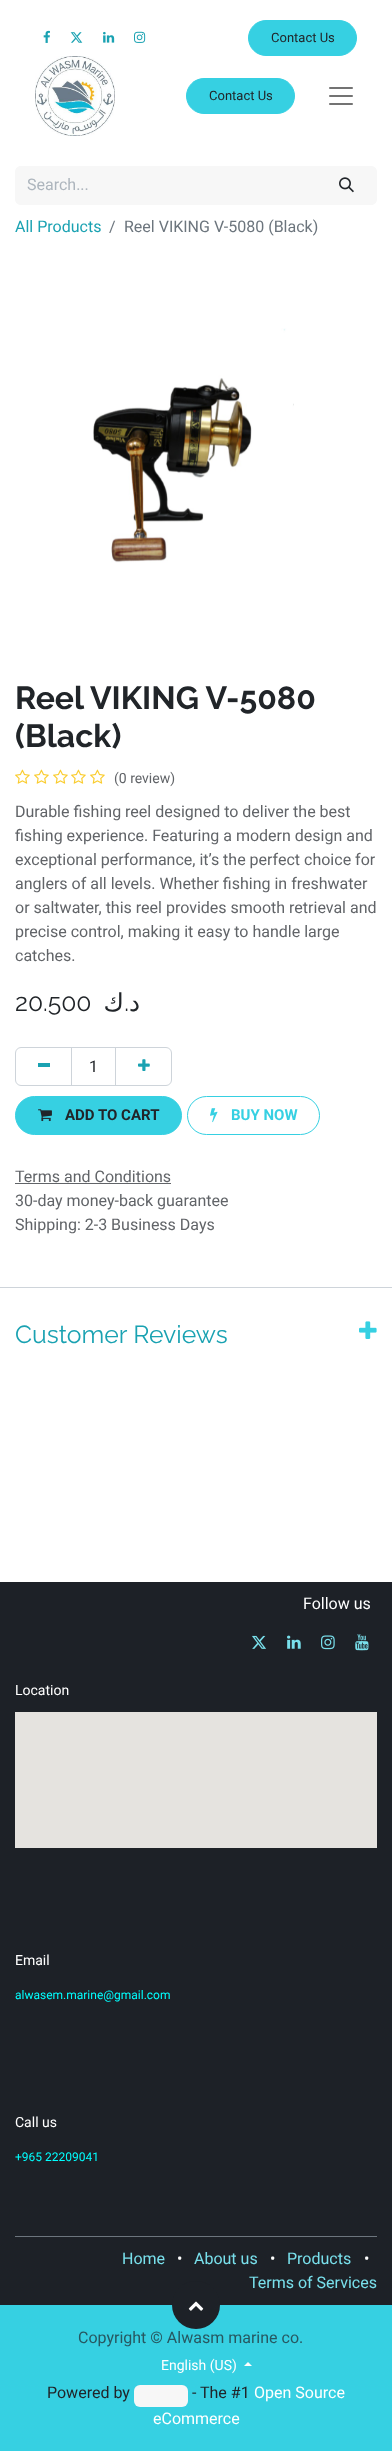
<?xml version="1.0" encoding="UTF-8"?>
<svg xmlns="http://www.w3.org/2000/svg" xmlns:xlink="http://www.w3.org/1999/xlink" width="392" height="2451">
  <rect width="100%" height="100%" fill="#ffffff" />
  <image x="43" y="30" width="7" height="13" xlink:href="image1.png" />
  <image x="70" y="32" width="13" height="11" xlink:href="image2.png" />
  <image x="103" y="31" width="12" height="12" xlink:href="image3.png" />
  <image x="134" y="31" width="12" height="12" xlink:href="image4.png" />
  <rect x="248.5" y="20.5" width="108" height="35" rx="17.5" fill="#36d0e2" stroke="#36d0e2" />
  <image x="35" y="56" width="80" height="80" xlink:href="image5.png" />
  <rect x="186.5" y="78.5" width="108" height="35" rx="17.5" fill="#36d0e2" stroke="#36d0e2" />
  <image x="329" y="87" width="24" height="18" xlink:href="image6.png" />
  <path d="M 21 166 h 297 v 39 h -297 c -3.5 0 -6 -2.5 -6 -6 v -27 c 0 -3.5 2.5 -6 6 -6 z" fill="#f7f7f7" />
  <path d="M 317 166 h 54 c 3.5 0 6 2.5 6 6 v 27 c 0 3.5 -2.5 6 -6 6 h -54 z" fill="#f7f7f7" />
  <image x="339" y="177" width="15" height="16" xlink:href="image7.png" />
  <image x="93" y="328" width="201" height="235" xlink:href="image8.png" />
  <image x="15" y="769" width="15" height="15" xlink:href="image9.png" />
  <image x="34" y="769" width="15" height="15" xlink:href="image9.png" />
  <image x="53" y="769" width="15" height="15" xlink:href="image9.png" />
  <image x="71" y="769" width="15" height="15" xlink:href="image9.png" />
  <image x="90" y="769" width="15" height="15" xlink:href="image9.png" />
  <rect x="71.5" y="1047.5" width="44" height="38" fill="none" stroke="#ced4da" />
  <path d="M 21 1047.5 h 50.5 v 38 h -50.5 c -3 0 -5.5 -2.5 -5.5 -5.5 v -27 c 0 -3 2.5 -5.5 5.5 -5.5 z" fill="none" stroke="#ced4da" />
  <rect x="38" y="1063" width="12" height="4" fill="#1aa2b2" />
  <path d="M 115.5 1047.5 h 50.5 c 3 0 5.5 2.5 5.5 5.5 v 27 c 0 3 -2.5 5.5 -5.5 5.5 h -50.5 z" fill="none" stroke="#ced4da" />
  <image x="138" y="1059" width="12" height="12" xlink:href="image10.png" />
  <rect x="15.5" y="1096.5" width="166" height="38" rx="19" fill="#36d0e2" stroke="#36d0e2" />
  <image x="38" y="1109" width="14" height="13" xlink:href="image11.png" />
  <rect x="187.5" y="1096.5" width="132" height="38" rx="19" fill="none" stroke="#36d0e2" />
  <image x="210" y="1108" width="8" height="15" xlink:href="image12.png" />
  <rect x="15" y="1183" width="156" height="1" fill="#616468" />
  <rect y="1287" width="392" height="1" fill="#ced4da" />
  <image x="359" y="1321" width="18" height="18" xlink:href="image13.png" />
  <rect y="1582" width="392" height="723" fill="#1d2127" />
  <image x="252" y="1635" width="14" height="14" xlink:href="image14.png" />
  <image x="287" y="1635" width="14" height="14" xlink:href="image15.png" />
  <image x="321" y="1635" width="14" height="15" xlink:href="image16.png" />
  <image x="355" y="1634" width="14" height="17" xlink:href="image17.png" />
  <rect x="15" y="1712" width="362" height="136" fill="#e5e3df" />
  <rect x="15" y="2236" width="362" height="1" fill="#6c757d" />
  <rect y="2305" width="392" height="146" fill="#36d0e2" />
  <circle cx="196" cy="2305" r="24" fill="#1d2127" />
  <image x="188" y="2301" width="16" height="10" xlink:href="image18.png" />
  <path d="M 252 2366 h -8 l 4 -4 z" fill="#ffffff" />
  <rect x="134" y="2385" width="54" height="22" rx="6" fill="#f7f7f7" />
  <text x="271" y="42" style="font-family: Roboto; font-size: 13px; fill: #212529">Contact Us</text>
  <text x="209" y="100" style="font-family: Roboto; font-size: 13px; fill: #212529">Contact Us</text>
  <text x="27" y="190" style="font-family: Roboto; font-size: 16px; fill: #adb5bd">Search...</text>
  <text x="15" y="232" style="font-family: Roboto; font-size: 16px; fill: #1aa2b2">All Products</text>
  <text x="109" y="232" style="font-family: Roboto; font-size: 16px; fill: #6c757d">/</text>
  <text x="124" y="232" style="font-family: Roboto; font-size: 16px; fill: #6c757d">Reel VIKING V-5080 (Black)</text>
  <text x="15" y="709" style="font-family: Raleway; font-size: 32px; font-weight: bold; fill: #212529">Reel VIKING V-5080</text>
  <text x="15" y="747" style="font-family: Raleway; font-size: 32px; font-weight: bold; fill: #212529">(Black)</text>
  <text x="114" y="783" style="font-family: Roboto; font-size: 14px; fill: #616468">(0 review)</text>
  <text x="15" y="817" style="font-family: Roboto; font-size: 16px; fill: #616468">Durable fishing reel designed to deliver the best</text>
  <text x="15" y="841" style="font-family: Roboto; font-size: 16px; fill: #616468">fishing experience. Featuring a modern design and</text>
  <text x="15" y="865" style="font-family: Roboto; font-size: 16px; fill: #616468">exceptional performance, it’s the perfect choice for</text>
  <text x="15" y="889" style="font-family: Roboto; font-size: 16px; fill: #616468">anglers of all levels. Whether fishing in freshwater</text>
  <text x="15" y="913" style="font-family: Roboto; font-size: 16px; fill: #616468">or saltwater, this reel provides smooth retrieval and</text>
  <text x="15" y="937" style="font-family: Roboto; font-size: 16px; fill: #616468">precise control, making it easy to handle large</text>
  <text x="15" y="961" style="font-family: Roboto; font-size: 16px; fill: #616468">catches.</text>
  <text x="15" y="1011" style="font-family: Raleway; font-size: 24.75px; fill: #212529">20.500</text>
  <text x="124" y="1011" style="font-family: DejaVu Sans; font-size: 24.75px; direction: rtl; fill: #212529">ك</text>
  <text x="129" y="1011" style="font-family: Raleway; font-size: 24.75px; direction: rtl; fill: #212529">.</text>
  <text x="140" y="1011" style="font-family: DejaVu Sans; font-size: 24.75px; direction: rtl; fill: #212529">د</text>
  <text x="89" y="1072" style="font-family: Roboto; font-size: 16px; fill: #212529">1</text>
  <text x="65" y="1120" style="font-family: Roboto; font-size: 15px; font-weight: bold; fill: #212529">ADD TO CART</text>
  <text x="231" y="1120" style="font-family: Roboto; font-size: 15px; font-weight: bold; fill: #36d0e2">BUY NOW</text>
  <text x="15" y="1182" style="font-family: Roboto; font-size: 16px; fill: #616468">Terms and Conditions</text>
  <text x="15" y="1206" style="font-family: Roboto; font-size: 16px; fill: #616468">30-day money-back guarantee</text>
  <text x="15" y="1230" style="font-family: Roboto; font-size: 16px; fill: #616468">Shipping: 2-3 Business Days</text>
  <text x="15" y="1343" style="font-family: Raleway; font-size: 24.75px; fill: #1aa2b2">Customer Reviews</text>
  <text x="303" y="1609" style="font-family: Roboto; font-size: 16px; fill: #ffffff">Follow us</text>
  <text x="15" y="1695" style="font-family: Roboto; font-size: 14px; fill: #ffffff">Location</text>
  <text x="15" y="1965" style="font-family: Roboto; font-size: 14px; fill: #ffffff">Email</text>
  <text x="15" y="1999" style="font-family: Roboto; font-size: 12px; fill: #00ffff">alwasem.marine@gmail.com</text>
  <text x="15" y="2127" style="font-family: Roboto; font-size: 14px; fill: #ffffff">Call us</text>
  <text x="15" y="2161" style="font-family: Roboto; font-size: 12px; fill: #00ffff">+965 22209041</text>
  <text x="122" y="2264" style="font-family: Roboto; font-size: 16px; fill: #79e0ec">Home</text>
  <text x="177" y="2264" style="font-family: Roboto; font-size: 16px; fill: #ffffff">•</text>
  <text x="194" y="2264" style="font-family: Roboto; font-size: 16px; fill: #79e0ec">About us</text>
  <text x="270" y="2264" style="font-family: Roboto; font-size: 16px; fill: #ffffff">•</text>
  <text x="287" y="2264" style="font-family: Roboto; font-size: 16px; fill: #79e0ec">Products</text>
  <text x="364" y="2264" style="font-family: Roboto; font-size: 16px; fill: #ffffff">•</text>
  <text x="249" y="2288" style="font-family: Roboto; font-size: 16px; fill: #79e0ec">Terms of Services</text>
  <text x="78" y="2343" style="font-family: Roboto; font-size: 16px; fill: #275861">Copyright © Alwasm marine co.</text>
  <text x="161" y="2370" style="font-family: Roboto; font-size: 14px; fill: #ffffff">English (US)</text>
  <text x="47" y="2398" style="font-family: Roboto; font-size: 16px; fill: #212529">Powered by</text>
  <text x="192" y="2398" style="font-family: Roboto; font-size: 16px; fill: #212529">-</text>
  <text x="200" y="2398" style="font-family: Roboto; font-size: 16px; fill: #212529">The #1</text>
  <text x="254" y="2398" style="font-family: Roboto; font-size: 16px; fill: #ffffff">Open Source</text>
  <text x="153" y="2424" style="font-family: Roboto; font-size: 16px; fill: #ffffff">eCommerce</text>
</svg>
